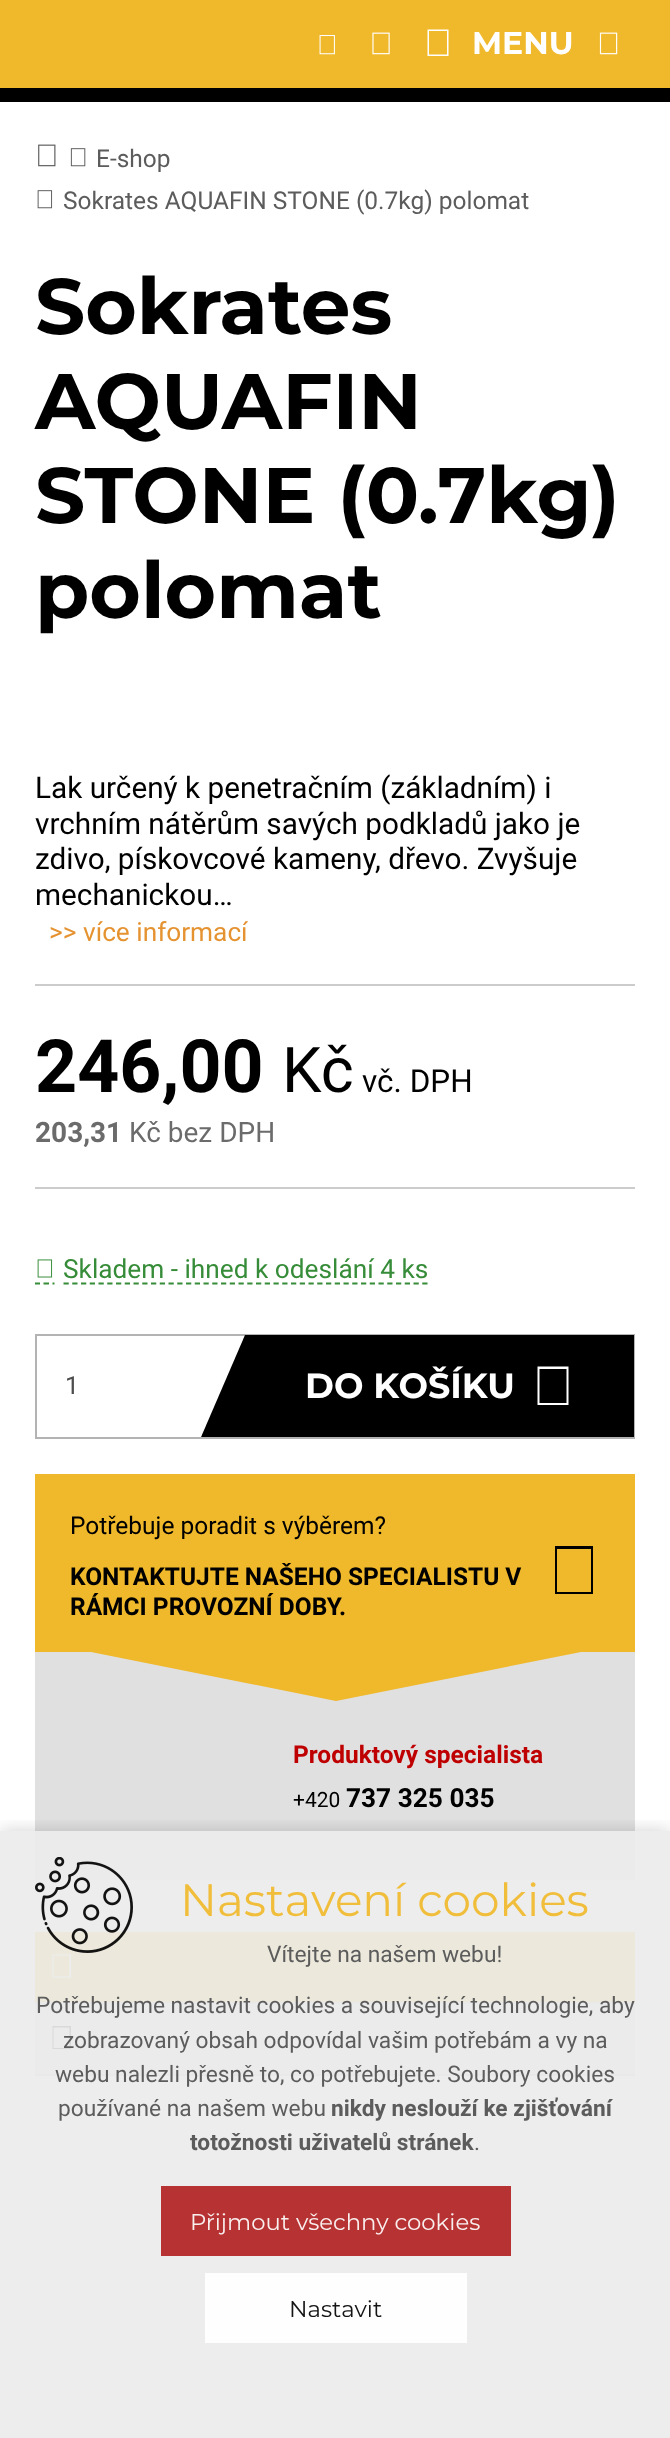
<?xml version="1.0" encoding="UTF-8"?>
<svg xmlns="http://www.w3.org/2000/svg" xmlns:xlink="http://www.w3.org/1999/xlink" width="670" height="2438">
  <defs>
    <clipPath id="clip1"><rect x="37" y="1335" width="597" height="102" /></clipPath>
    <clipPath id="clip2"><rect x="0" y="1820" width="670" height="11" /></clipPath>
  </defs>
  <rect width="100%" height="100%" fill="#ffffff" />
  <rect y="88" width="670" height="14" fill="#000000" />
  <rect y="4" width="670" height="87" fill="#000000" fill-opacity="0.35" filter="blur(4.5px)" />
  <rect width="670" height="88" fill="#f0b82b" />
  <image x="319" y="35" width="16" height="20" xlink:href="image1.png" />
  <image x="372" y="32" width="18" height="23" xlink:href="image2.png" />
  <path d="M 427.5 29.5 h 21 v 26.5 h -21 z m 1.5 1.5 v 23.5 h 18 v -23.5 z" fill="#ffffff" />
  <image x="599" y="32" width="19" height="23" xlink:href="image3.png" />
  <image x="38" y="144" width="18" height="23" xlink:href="image4.png" />
  <image x="70" y="148" width="16" height="19" xlink:href="image5.png" />
  <image x="37" y="190" width="16" height="19" xlink:href="image6.png" />
  <rect x="35" y="984" width="600" height="2" fill="#cccccc" />
  <rect x="35" y="1187" width="600" height="2" fill="#cccccc" />
  <path d="M 35 1283.5 h 5 m 3.5 0 h 5.5 m 3.5 0 h 2" fill="none" stroke="#368c38" stroke-width="1.8" />
  <image x="37" y="1259" width="16" height="19" xlink:href="image7.png" />
  <path d="M 63.5 1283.5 h 365" fill="none" stroke="#368c38" stroke-width="1.8" stroke-dasharray="5.25 3.5" />
  <rect x="36" y="1335" width="598" height="103" fill="none" stroke="#b3b3b3" stroke-width="2" />
  <rect x="245" y="1335" width="389" height="102" fill="#000000" />
  <g clip-path="url(#clip1)">
    <path d="M 245 1335 v 123 h -53 z" fill="#000000" />
  </g>
  <path d="M 537.5 1366.5 h 31 v 38.5 h -31 z m 2 2.5 v 34 h 27 v -34 z" fill="#ffffff" />
  <rect x="35" y="1474" width="600" height="178" fill="#f0b82b" />
  <path d="M 555 1546 h 38 v 48 h -38 z m 2 3 v 43 h 34 v -43 z" fill="#000000" />
  <rect x="35" y="1652" width="600" height="228" fill="#e0e0e0" />
  <path d="M 91 1652 h 490 l -245 49 z" fill="#f0b82b" />
  <rect x="35" y="2002" width="600" height="2" fill="#cccccc" />
  <rect x="35" y="1932" width="600" height="70" fill="#f0b82b" />
  <path d="M 52.5 1954.5 h 18.5 v 23 h -18.5 z m 1 1 v 21 h 16 v -21 z" fill="#ffffff" />
  <rect x="35" y="2074" width="600" height="2" fill="#cccccc" />
  <rect x="35" y="2004" width="600" height="70" fill="#e7e7e7" />
  <path d="M 52.5 2026 h 18.5 v 23 h -18.5 z m 1 1.5 v 20.5 h 16 v -20.5 z" fill="#000000" />
  <g clip-path="url(#clip2)">
    <rect y="1831" width="670" height="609" fill="#010101" fill-opacity="0.18" filter="blur(9px)" />
  </g>
  <rect y="1831" width="670" height="607" fill="#ebebeb" fill-opacity="0.92" />
  <image x="35" y="1857" width="98" height="96" xlink:href="image8.png" />
  <rect x="161" y="2186" width="350" height="70" fill="#b22222" fill-opacity="0.92" />
  <rect x="205" y="2273" width="262" height="70" fill="#ffffff" fill-opacity="0.92" />
  <text x="472" y="54" style="font-family: Montserrat; font-size: 31.5px; font-weight: 100; fill: #ffffff">MENU</text>
  <text x="96" y="167" style="font-family: Roboto; font-size: 24.5px; fill: #5c5c5c">E-shop</text>
  <text x="63" y="209" style="font-family: Roboto; font-size: 24.5px; fill: #5c5c5c">Sokrates AQUAFIN STONE (0.7kg) polomat</text>
  <text x="35" y="334" style="font-family: Montserrat; font-size: 78.75px; font-weight: 100; fill: #000000">Sokrates</text>
  <text x="35" y="429" style="font-family: Montserrat; font-size: 78.75px; font-weight: 100; fill: #000000">AQUAFIN</text>
  <text x="35" y="523" style="font-family: Montserrat; font-size: 78.75px; font-weight: 100; fill: #000000">STONE (0.7kg)</text>
  <text x="35" y="618" style="font-family: Montserrat; font-size: 78.75px; font-weight: 100; fill: #000000">polomat</text>
  <text x="35" y="798" style="font-family: Roboto; font-size: 29.75px; fill: #000000">Lak určený k penetračním (základním) i</text>
  <text x="35" y="834" style="font-family: Roboto; font-size: 29.75px; fill: #000000">vrchním nátěrům savých podkladů jako je</text>
  <text x="35" y="869" style="font-family: Roboto; font-size: 29.75px; fill: #000000">zdivo, pískovcové kameny, dřevo. Zvyšuje</text>
  <text x="35" y="905" style="font-family: Roboto; font-size: 29.75px; fill: #000000">mechanickou…</text>
  <text x="49" y="941" style="font-family: Roboto; font-size: 26.25px; fill: #e59231">&gt;&gt; více informací</text>
  <text x="35" y="1092" style="font-family: Roboto; font-size: 73.5px; font-weight: bold; fill: #000000">246,00</text>
  <text x="282" y="1092" style="font-family: Roboto; font-size: 63px; fill: #000000">Kč</text>
  <text x="362" y="1092" style="font-family: Roboto; font-size: 31.5px; fill: #000000">vč. DPH</text>
  <text x="35" y="1142" style="font-family: Roboto; font-size: 28px; font-weight: bold; fill: #6b6b6b">203,31</text>
  <text x="129" y="1142" style="font-family: Roboto; font-size: 28px; fill: #6b6b6b">Kč bez DPH</text>
  <text x="63" y="1278" style="font-family: Roboto; font-size: 26.25px; fill: #368c38">Skladem - ihned k odeslání 4 ks</text>
  <text x="65" y="1394" style="font-family: Roboto; font-size: 25px; fill: #4d4d4d">1</text>
  <text x="305" y="1398" style="font-family: Montserrat; font-size: 35px; font-weight: 100; fill: #ffffff">DO KOŠÍKU</text>
  <text x="70" y="1534" style="font-family: Roboto; font-size: 24.5px; fill: #000000">Potřebuje poradit s výběrem?</text>
  <text x="70" y="1585" style="font-family: Roboto; font-size: 24.5px; font-weight: bold; fill: #000000">KONTAKTUJTE NAŠEHO SPECIALISTU V</text>
  <text x="70" y="1615" style="font-family: Roboto; font-size: 24.5px; font-weight: bold; fill: #000000">RÁMCI PROVOZNÍ DOBY.</text>
  <text x="293" y="1763" style="font-family: Roboto; font-size: 24.5px; font-weight: bold; fill: #bf0000">Produktový specialista</text>
  <text x="293" y="1807" style="font-family: Roboto; font-size: 21px; fill: #000000">+420</text>
  <text x="346" y="1807" style="font-family: Roboto; font-size: 26.25px; font-weight: bold; fill: #000000">737 325 035</text>
  <text x="180" y="1916" style="font-family: 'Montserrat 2'; font-size: 45.5px; font-weight: 100; fill: #f1be3c">Nastavení cookies</text>
  <text x="267" y="1962" style="font-family: Roboto; font-size: 22.75px; fill: #5c5c5c">Vítejte na našem webu!</text>
  <text x="36" y="2013" style="font-family: Roboto; font-size: 22.75px; fill: #5c5c5c">Potřebujeme nastavit cookies a související technologie, aby</text>
  <text x="63" y="2048" style="font-family: Roboto; font-size: 22.75px; fill: #5c5c5c">zobrazovaný obsah odpovídal vašim potřebám a vy na</text>
  <text x="55" y="2082" style="font-family: Roboto; font-size: 22.75px; fill: #5c5c5c">webu nalezli přesně to, co potřebujete. Soubory cookies</text>
  <text x="58" y="2116" style="font-family: Roboto; font-size: 22.75px; fill: #5c5c5c">používané na našem webu</text>
  <text x="331" y="2116" style="font-family: Roboto; font-size: 22.75px; font-weight: bold; fill: #5c5c5c">nikdy neslouží ke zjišťování</text>
  <text x="190" y="2150" style="font-family: Roboto; font-size: 22.75px; font-weight: bold; fill: #5c5c5c">totožnosti uživatelů stránek</text>
  <text x="474" y="2150" style="font-family: Roboto; font-size: 22.75px; fill: #5c5c5c">.</text>
  <text x="190" y="2230" style="font-family: 'Montserrat 2'; font-size: 22.75px; font-weight: 100; fill: #f9efef">Přijmout všechny cookies</text>
  <text x="289" y="2317" style="font-family: 'Montserrat 2'; font-size: 22.75px; font-weight: 100; fill: #141414">Nastavit</text>
</svg>
